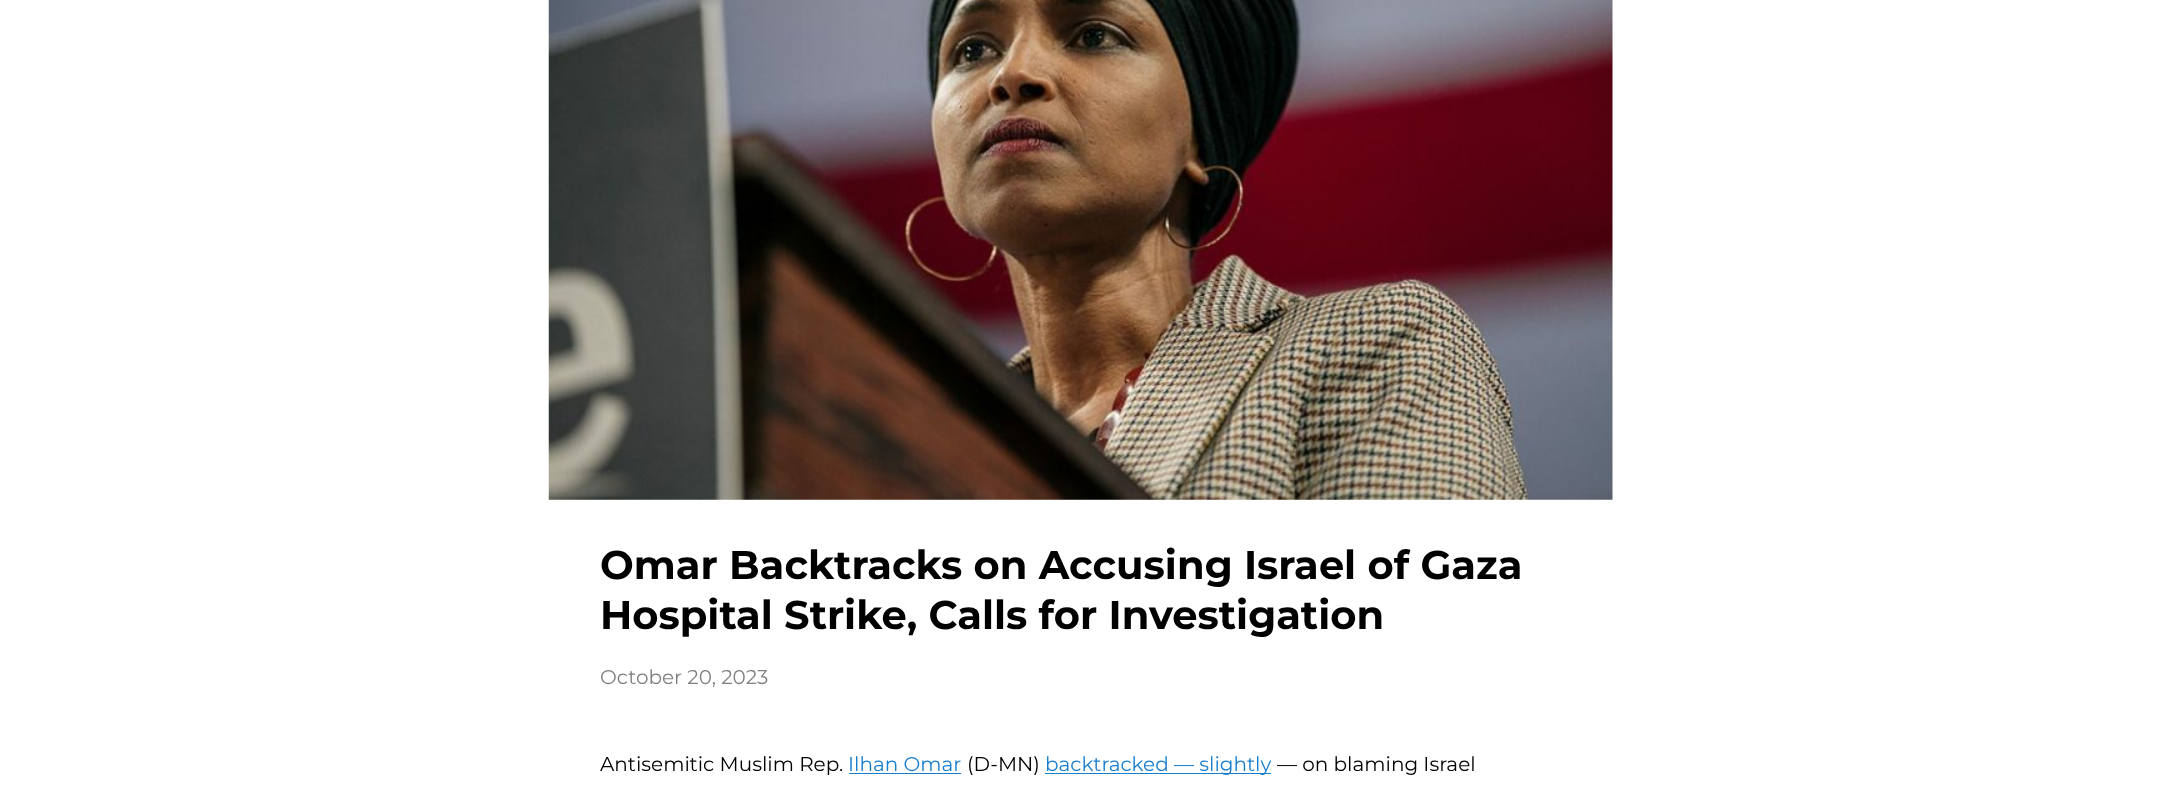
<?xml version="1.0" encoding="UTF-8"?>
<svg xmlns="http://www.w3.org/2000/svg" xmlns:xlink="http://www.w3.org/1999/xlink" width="2160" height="794">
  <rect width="100%" height="100%" fill="#ffffff" />
  <image x="548" y="0" width="1065" height="500" xlink:href="image1.png" />
  <rect x="849" y="773" width="112" height="1" fill="#187fcf" />
  <rect x="1045" y="773" width="226" height="1" fill="#187fcf" />
  <text x="600" y="579" style="font-family: Montserrat; font-size: 40px; font-weight: bold; fill: #000000">Omar Backtracks on Accusing Israel of Gaza</text>
  <text x="600" y="629" style="font-family: Montserrat; font-size: 40px; font-weight: bold; fill: #000000">Hospital Strike, Calls for Investigation</text>
  <text x="600" y="684" style="font-family: Montserrat; font-size: 20px; fill: #7f7f7f">October 20, 2023</text>
  <text x="600" y="771" style="font-family: Montserrat; font-size: 20px; fill: #000000">Antisemitic Muslim Rep.</text>
  <text x="848" y="771" style="font-family: Montserrat; font-size: 20px; fill: #187fcf">Ilhan Omar</text>
  <text x="967" y="771" style="font-family: Montserrat; font-size: 20px; fill: #000000">(D-MN)</text>
  <text x="1045" y="771" style="font-family: Montserrat; font-size: 20px; fill: #187fcf">backtracked — slightly</text>
  <text x="1277" y="771" style="font-family: Montserrat; font-size: 20px; fill: #000000">— on blaming Israel</text>
</svg>
